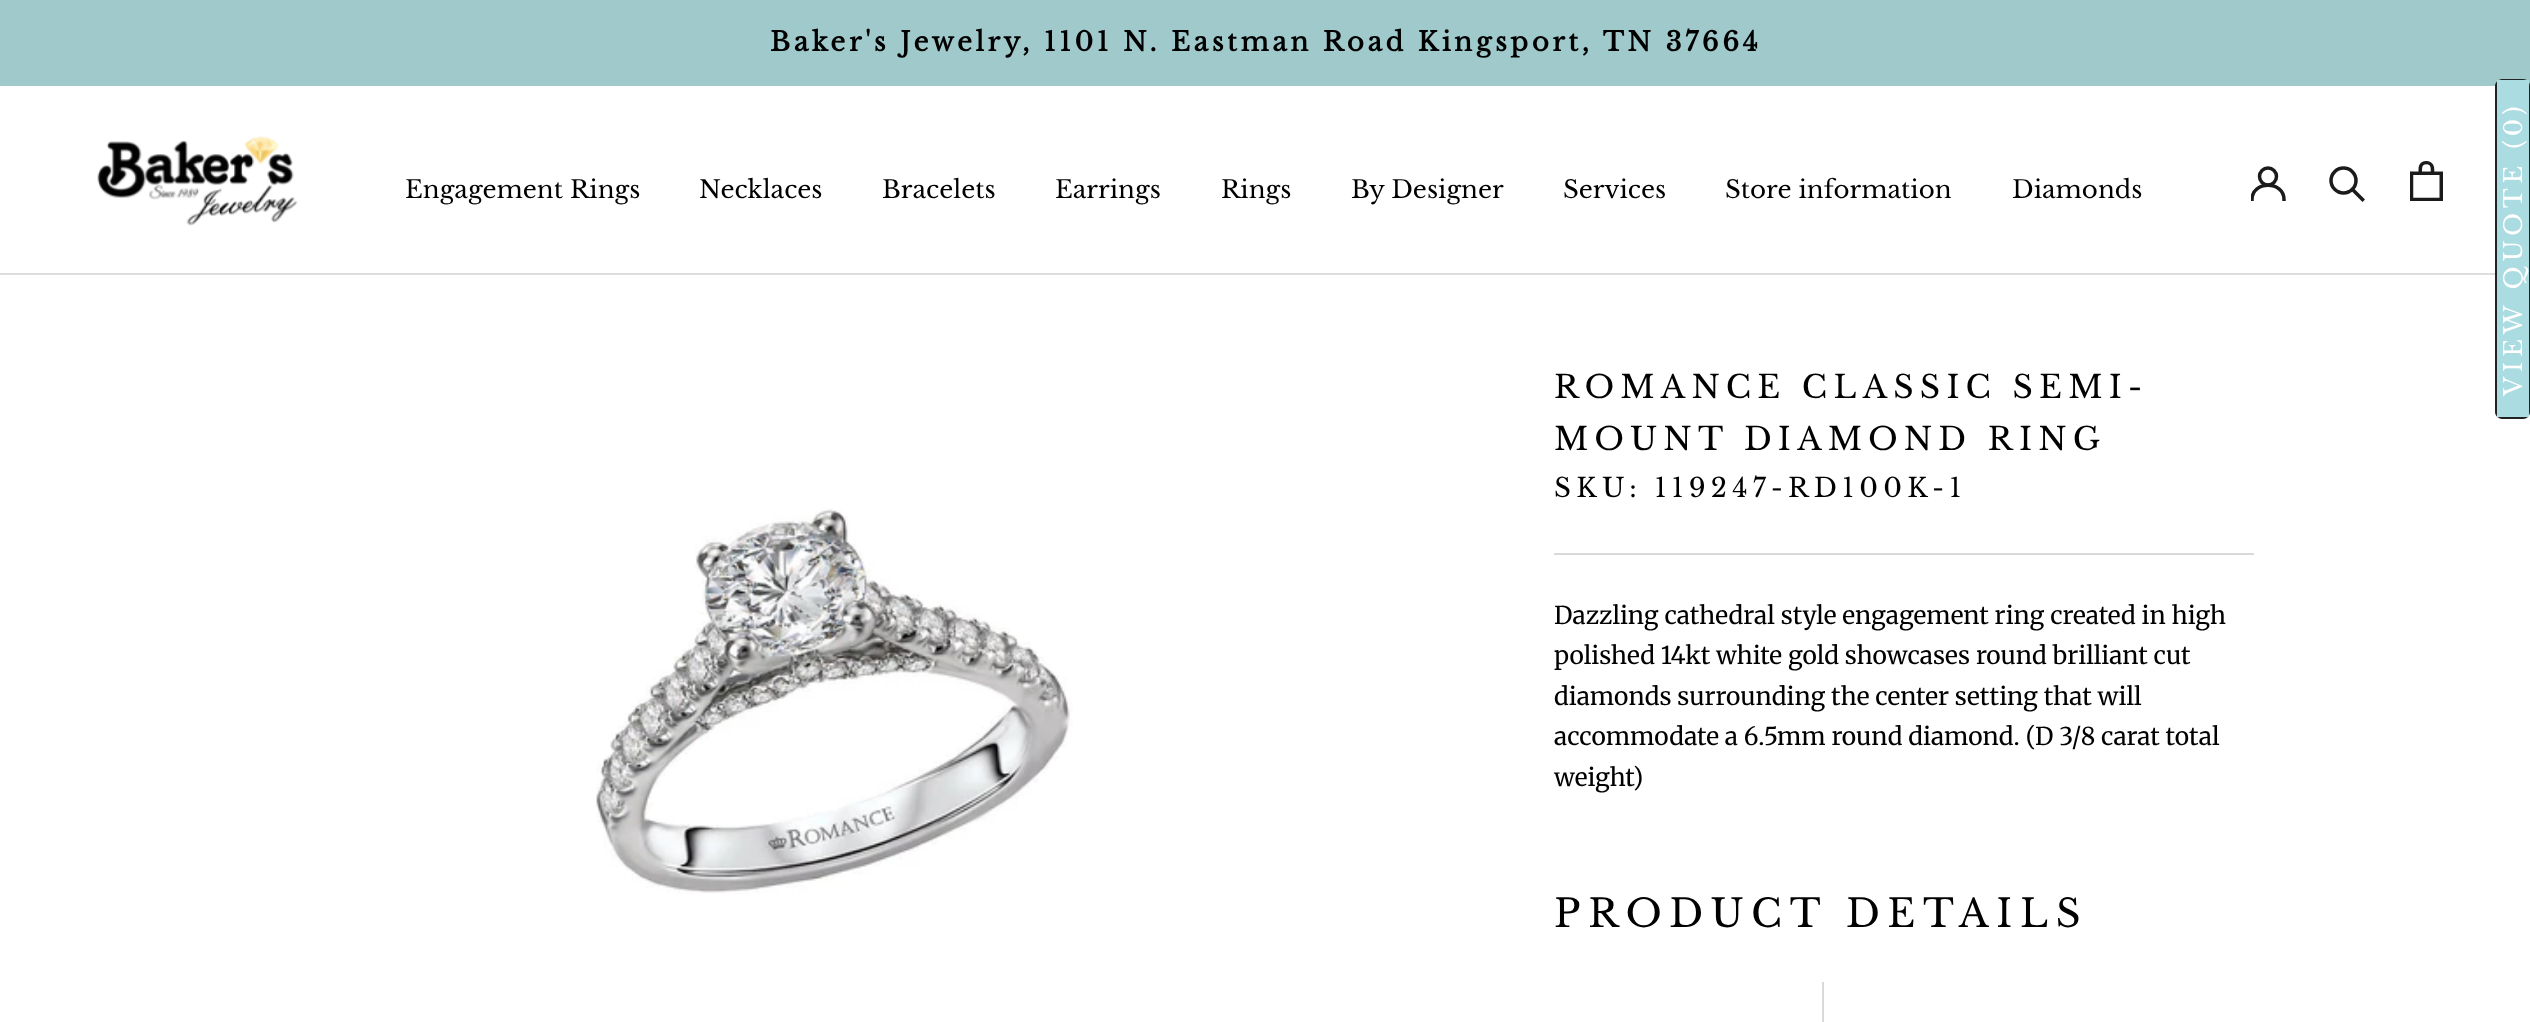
<?xml version="1.0" encoding="UTF-8"?>
<svg xmlns="http://www.w3.org/2000/svg" xmlns:xlink="http://www.w3.org/1999/xlink" width="2530" height="1022">
  <defs>
    <clipPath id="clip1"><rect x="2251" y="166" width="35" height="35" /></clipPath>
  </defs>
  <rect width="100%" height="100%" fill="#ffffff" />
  <rect width="2530" height="86" fill="#a0c9cb" />
  <rect y="273" width="2495" height="2" fill="#dddddd" />
  <image x="97" y="136" width="201" height="90" xlink:href="image1.png" />
  <g clip-path="url(#clip1)">
    <path d="M 2252 199.5 c 0 -19 32 -19 32 0" fill="none" stroke="#1c1b1b" stroke-width="3.5" stroke-linecap="square" />
  </g>
  <circle cx="2268" cy="176.5" r="8.5" fill="none" stroke="#1c1b1b" stroke-width="3.5" />
  <path d="M 2362.5 199.5 l -10 -10" fill="none" stroke="#1c1b1b" stroke-width="3.5" stroke-linecap="square" />
  <circle cx="2343.5" cy="180.5" r="12.5" fill="none" stroke="#1c1b1b" stroke-width="3.5" />
  <image x="2410" y="161" width="33" height="40" xlink:href="image2.png" />
  <image x="596" y="509" width="477" height="385" xlink:href="image3.png" />
  <rect x="1554" y="553" width="700" height="2" fill="#d9d9d9" />
  <rect x="1822" y="982" width="2" height="40" fill="#d9d9d9" />
  <path d="M 2495 412 v -326 c 0 -4 4 -7 7 -7 h 21 c 4 0 7 3 7 7 v 326 c 0 4 -3 7 -7 7 h -21 c -3 0 -7 -3 -7 -7 z" fill="#202223" />
  <rect x="2497" y="80" width="32" height="337" fill="#abdce1" />
  <text x="770" y="51" style="font-family: Libre Baskerville; font-size: 26.25px; font-weight: bold; letter-spacing: 3.5px; fill: #000000">Baker's Jewelry, 1101 N. Eastman Road Kingsport, TN 37664</text>
  <text x="405" y="198" style="font-family: Libre Baskerville; font-size: 24.5px; fill: #000000">Engagement Rings</text>
  <text x="699" y="198" style="font-family: Libre Baskerville; font-size: 24.5px; fill: #000000">Necklaces</text>
  <text x="882" y="198" style="font-family: Libre Baskerville; font-size: 24.5px; fill: #000000">Bracelets</text>
  <text x="1055" y="198" style="font-family: Libre Baskerville; font-size: 24.5px; fill: #000000">Earrings</text>
  <text x="1221" y="198" style="font-family: Libre Baskerville; font-size: 24.5px; fill: #000000">Rings</text>
  <text x="1351" y="198" style="font-family: Libre Baskerville; font-size: 24.5px; fill: #000000">By Designer</text>
  <text x="1563" y="198" style="font-family: Libre Baskerville; font-size: 24.5px; fill: #000000">Services</text>
  <text x="1725" y="198" style="font-family: Libre Baskerville; font-size: 24.5px; fill: #000000">Store information</text>
  <text x="2012" y="198" style="font-family: Libre Baskerville; font-size: 24.5px; fill: #000000">Diamonds</text>
  <text x="1554" y="398" style="font-family: Libre Baskerville; font-size: 31.5px; letter-spacing: 6.3px; fill: #000000">ROMANCE CLASSIC SEMI-</text>
  <text x="1554" y="450" style="font-family: Libre Baskerville; font-size: 31.5px; letter-spacing: 6.3px; fill: #000000">MOUNT DIAMOND RING</text>
  <text x="1554" y="497" style="font-family: Libre Baskerville; font-size: 26.25px; letter-spacing: 5.25px; fill: #000000">SKU: 119247-RD100K-1</text>
  <text x="1554" y="624" style="font-family: Merriweather; font-size: 24.5px; fill: #000000">Dazzling cathedral style engagement ring created in high</text>
  <text x="1554" y="664" style="font-family: Merriweather; font-size: 24.5px; fill: #000000">polished 14kt white gold showcases round brilliant cut</text>
  <text x="1554" y="705" style="font-family: Merriweather; font-size: 24.5px; fill: #000000">diamonds surrounding the center setting that will</text>
  <text x="1554" y="745" style="font-family: Merriweather; font-size: 24.5px; fill: #000000">accommodate a 6.5mm round diamond. (D 3/8 carat total</text>
  <text x="1554" y="786" style="font-family: Merriweather; font-size: 24.5px; fill: #000000">weight)</text>
  <text x="1554" y="927" style="font-family: Libre Baskerville; font-size: 38.5px; letter-spacing: 7.75px; fill: #000000">PRODUCT DETAILS</text>
  <text x="2522" y="396" transform="rotate(-90 2522 396)" style="font-family: Libre Baskerville; font-size: 24.5px; letter-spacing: 4.9px; fill: #ffffff">VIEW QUOTE (0)</text>
</svg>
